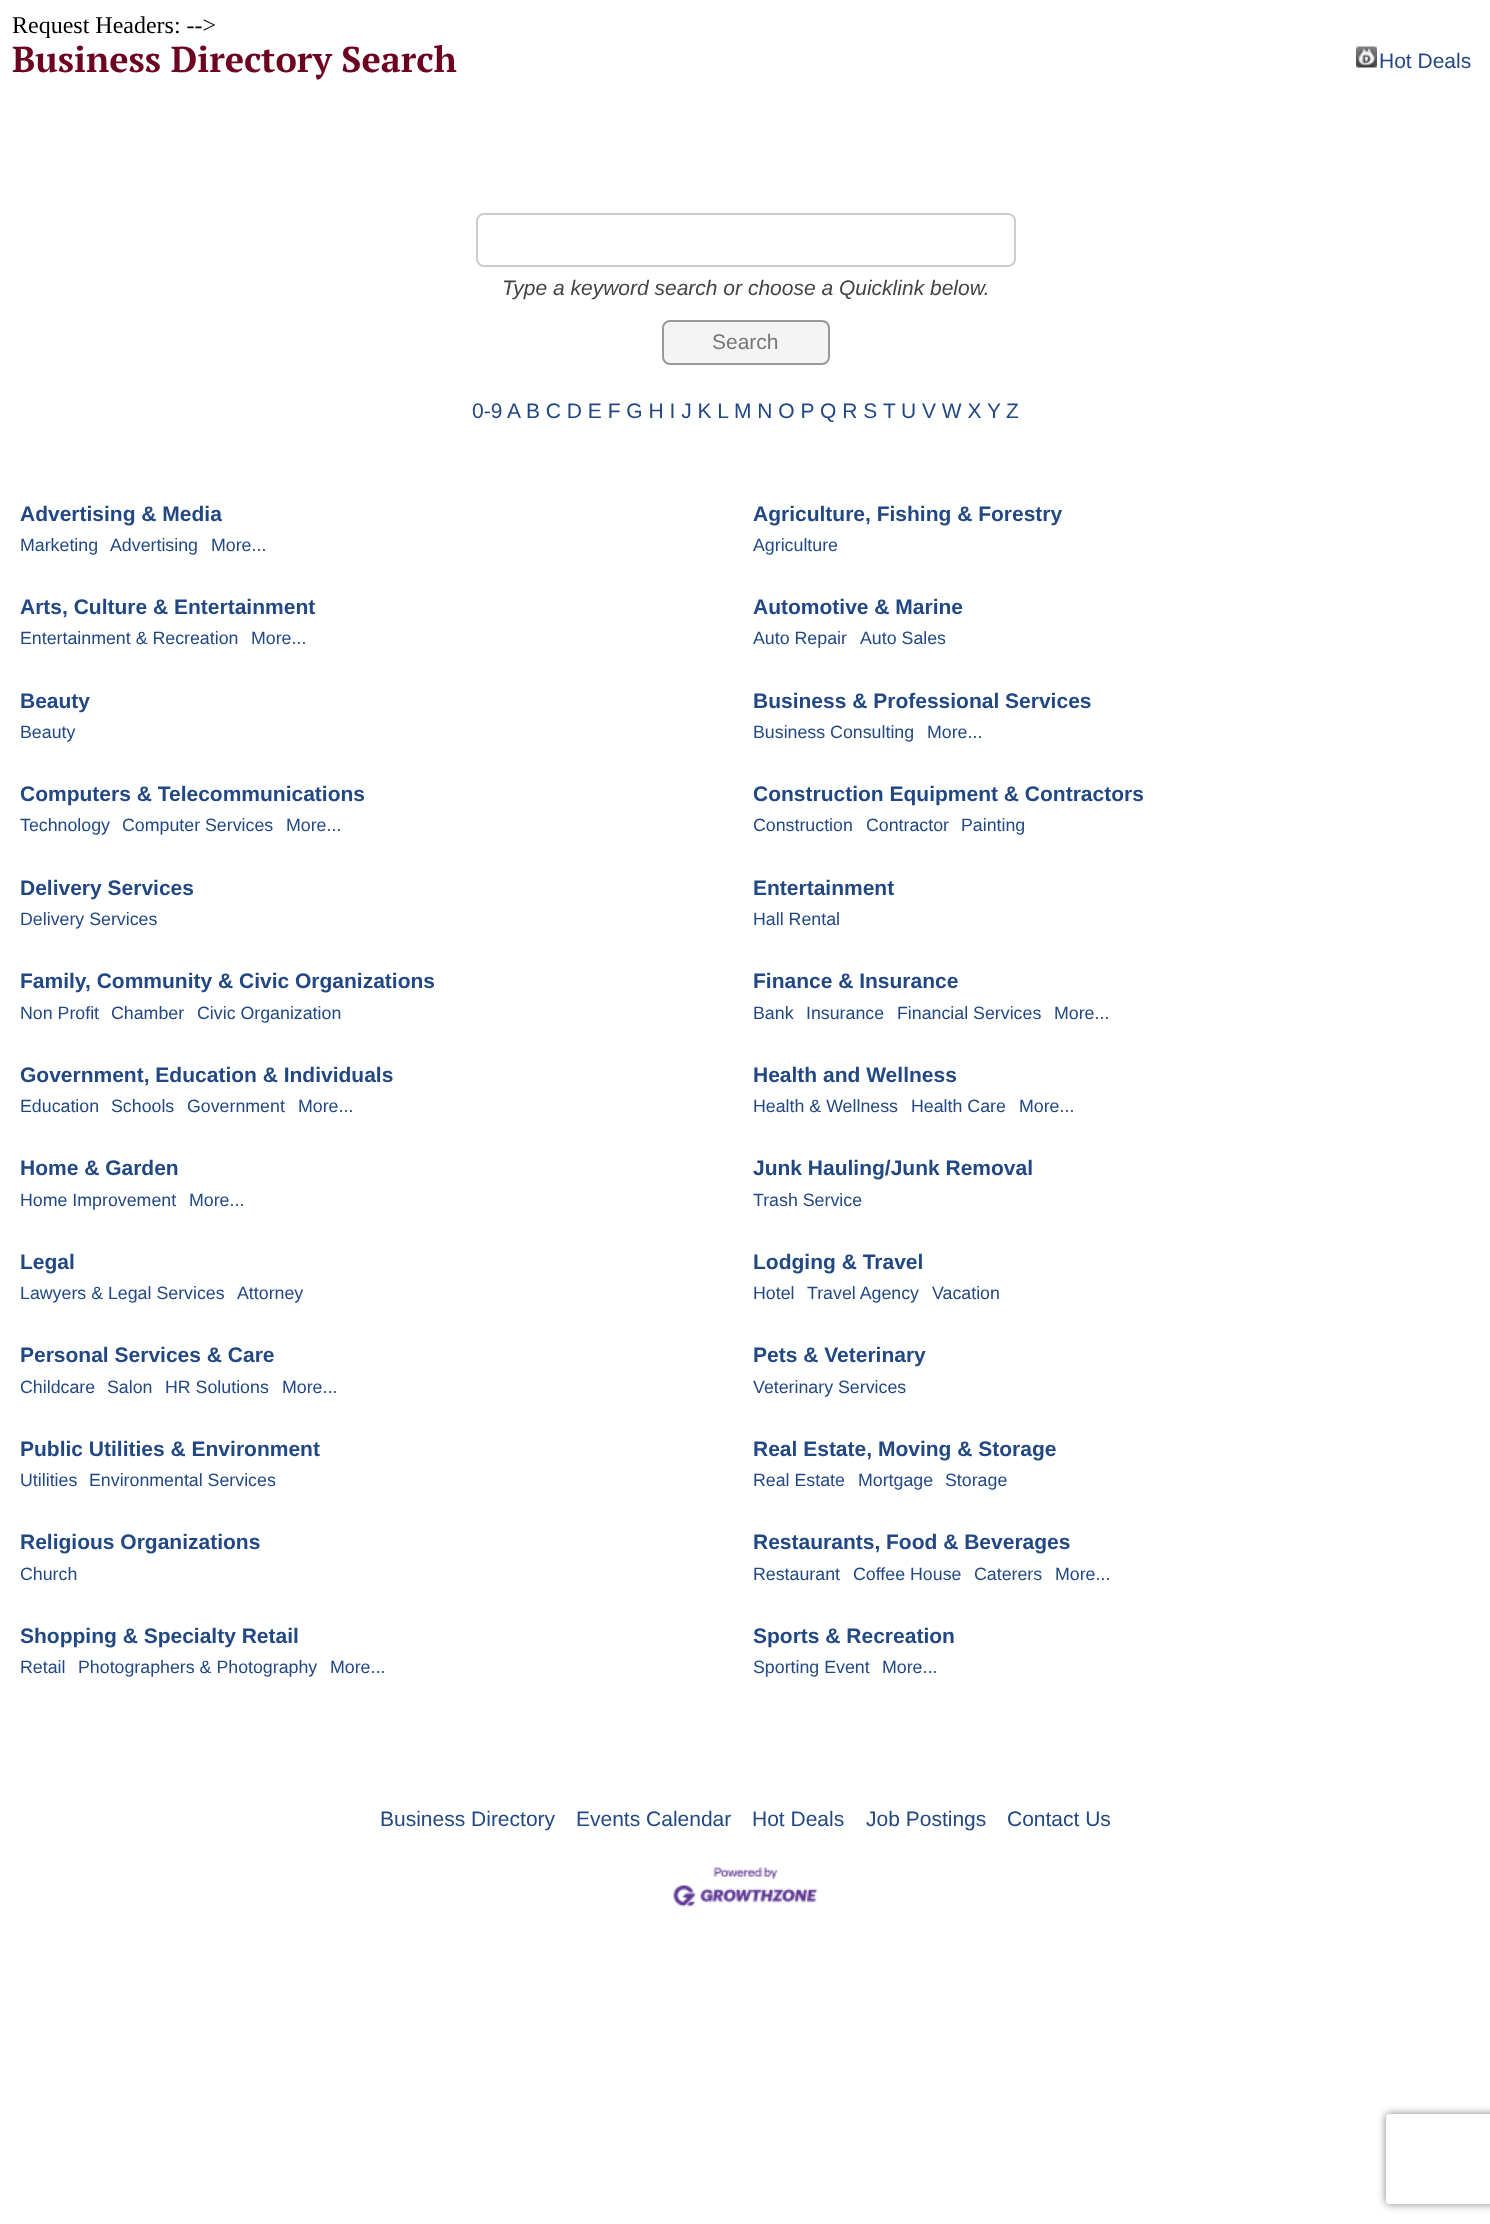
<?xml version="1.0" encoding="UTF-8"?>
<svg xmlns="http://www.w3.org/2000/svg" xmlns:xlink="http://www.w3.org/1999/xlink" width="1490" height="2224">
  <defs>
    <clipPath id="clip1"><path d="M 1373 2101 h 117 v 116 h -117 z m 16 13 h 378 c 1.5 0 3 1.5 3 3 v 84 c 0 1.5 -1.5 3 -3 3 h -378 c -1.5 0 -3 -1.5 -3 -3 v -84 c 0 -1.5 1.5 -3 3 -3 z" clip-rule="evenodd" /></clipPath>
  </defs>
  <rect width="100%" height="100%" fill="#ffffff" />
  <image x="1356" y="46" width="21" height="22" xlink:href="image1.png" />
  <rect x="477" y="214" width="538" height="52" rx="7" fill="none" stroke="#cccccc" stroke-width="2" />
  <rect x="663" y="321" width="166" height="43" rx="7" fill="#f4f4f4" stroke="#999999" stroke-width="2" />
  <image x="673" y="1867" width="145" height="40" xlink:href="image2.png" />
  <g clip-path="url(#clip1)">
    <rect x="1386" y="2114" width="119" height="90" rx="3" fill="#808080" filter="blur(4px)" />
  </g>
  <text x="12" y="33" style="font-family: Liberation Serif; font-size: 24px; fill: #000000">Request Headers: --&gt;</text>
  <text x="12" y="72" style="font-family: PT Serif; font-size: 36px; font-weight: bold; fill: #6c0321">Business Directory Search</text>
  <text x="1379" y="68" style="font-family: Liberation Sans; font-size: 21px; fill: #224884">Hot Deals</text>
  <text x="502" y="295" style="font-family: Liberation Sans; font-size: 21px; font-style: italic; fill: #444444">Type a keyword search or choose a Quicklink below.</text>
  <text x="712" y="349" style="font-family: Liberation Sans; font-size: 21px; fill: #777777">Search</text>
  <text x="472" y="418" style="font-family: Liberation Sans; font-size: 21px; fill: #224884">0-9</text>
  <text x="507" y="418" style="font-family: Liberation Sans; font-size: 21px; fill: #224884">A</text>
  <text x="526" y="418" style="font-family: Liberation Sans; font-size: 21px; fill: #224884">B C D E F G H I J K L</text>
  <text x="734" y="418" style="font-family: Liberation Sans; font-size: 21px; fill: #224884">M N O P</text>
  <text x="820" y="418" style="font-family: Liberation Sans; font-size: 21px; fill: #224884">Q R S</text>
  <text x="883" y="418" style="font-family: Liberation Sans; font-size: 21px; fill: #224884">T</text>
  <text x="901" y="418" style="font-family: Liberation Sans; font-size: 21px; fill: #224884">U V W X</text>
  <text x="987" y="418" style="font-family: Liberation Sans; font-size: 21px; fill: #224884">Y</text>
  <text x="1006" y="418" style="font-family: Liberation Sans; font-size: 21px; fill: #224884">Z</text>
  <text x="20" y="521" style="font-family: Liberation Sans; font-size: 21px; font-weight: bold; fill: #224884">Advertising &amp; Media</text>
  <text x="20" y="551" style="font-family: Liberation Sans; font-size: 17.8px; fill: #224884">Marketing</text>
  <text x="110" y="551" style="font-family: Liberation Sans; font-size: 17.8px; fill: #224884">Advertising</text>
  <text x="211" y="551" style="font-family: Liberation Sans; font-size: 17.8px; fill: #224884">More...</text>
  <text x="753" y="521" style="font-family: Liberation Sans; font-size: 21px; font-weight: bold; fill: #224884">Agriculture, Fishing &amp; Forestry</text>
  <text x="753" y="551" style="font-family: Liberation Sans; font-size: 17.8px; fill: #224884">Agriculture</text>
  <text x="20" y="614" style="font-family: Liberation Sans; font-size: 21px; font-weight: bold; fill: #224884">Arts, Culture &amp; Entertainment</text>
  <text x="20" y="644" style="font-family: Liberation Sans; font-size: 17.8px; fill: #224884">Entertainment &amp; Recreation</text>
  <text x="251" y="644" style="font-family: Liberation Sans; font-size: 17.8px; fill: #224884">More...</text>
  <text x="753" y="614" style="font-family: Liberation Sans; font-size: 21px; font-weight: bold; fill: #224884">Automotive &amp; Marine</text>
  <text x="753" y="644" style="font-family: Liberation Sans; font-size: 17.8px; fill: #224884">Auto Repair</text>
  <text x="860" y="644" style="font-family: Liberation Sans; font-size: 17.8px; fill: #224884">Auto Sales</text>
  <text x="20" y="708" style="font-family: Liberation Sans; font-size: 21px; font-weight: bold; fill: #224884">Beauty</text>
  <text x="20" y="738" style="font-family: Liberation Sans; font-size: 17.8px; fill: #224884">Beauty</text>
  <text x="753" y="708" style="font-family: Liberation Sans; font-size: 21px; font-weight: bold; fill: #224884">Business &amp; Professional Services</text>
  <text x="753" y="738" style="font-family: Liberation Sans; font-size: 17.8px; fill: #224884">Business Consulting</text>
  <text x="927" y="738" style="font-family: Liberation Sans; font-size: 17.8px; fill: #224884">More...</text>
  <text x="20" y="801" style="font-family: Liberation Sans; font-size: 21px; font-weight: bold; fill: #224884">Computers &amp; Telecommunications</text>
  <text x="20" y="831" style="font-family: Liberation Sans; font-size: 17.8px; fill: #224884">Technology</text>
  <text x="122" y="831" style="font-family: Liberation Sans; font-size: 17.8px; fill: #224884">Computer Services</text>
  <text x="286" y="831" style="font-family: Liberation Sans; font-size: 17.8px; fill: #224884">More...</text>
  <text x="753" y="801" style="font-family: Liberation Sans; font-size: 21px; font-weight: bold; fill: #224884">Construction Equipment &amp; Contractors</text>
  <text x="753" y="831" style="font-family: Liberation Sans; font-size: 17.8px; fill: #224884">Construction</text>
  <text x="866" y="831" style="font-family: Liberation Sans; font-size: 17.8px; fill: #224884">Contractor</text>
  <text x="961" y="831" style="font-family: Liberation Sans; font-size: 17.8px; fill: #224884">Painting</text>
  <text x="20" y="895" style="font-family: Liberation Sans; font-size: 21px; font-weight: bold; fill: #224884">Delivery Services</text>
  <text x="20" y="925" style="font-family: Liberation Sans; font-size: 17.8px; fill: #224884">Delivery Services</text>
  <text x="753" y="895" style="font-family: Liberation Sans; font-size: 21px; font-weight: bold; fill: #224884">Entertainment</text>
  <text x="753" y="925" style="font-family: Liberation Sans; font-size: 17.8px; fill: #224884">Hall Rental</text>
  <text x="20" y="988" style="font-family: Liberation Sans; font-size: 21px; font-weight: bold; fill: #224884">Family, Community &amp; Civic Organizations</text>
  <text x="20" y="1019" style="font-family: Liberation Sans; font-size: 17.8px; fill: #224884">Non Profit</text>
  <text x="111" y="1019" style="font-family: Liberation Sans; font-size: 17.8px; fill: #224884">Chamber</text>
  <text x="197" y="1019" style="font-family: Liberation Sans; font-size: 17.8px; fill: #224884">Civic Organization</text>
  <text x="753" y="988" style="font-family: Liberation Sans; font-size: 21px; font-weight: bold; fill: #224884">Finance &amp; Insurance</text>
  <text x="753" y="1019" style="font-family: Liberation Sans; font-size: 17.8px; fill: #224884">Bank</text>
  <text x="806" y="1019" style="font-family: Liberation Sans; font-size: 17.8px; fill: #224884">Insurance</text>
  <text x="897" y="1019" style="font-family: Liberation Sans; font-size: 17.8px; fill: #224884">Financial Services</text>
  <text x="1054" y="1019" style="font-family: Liberation Sans; font-size: 17.8px; fill: #224884">More...</text>
  <text x="20" y="1082" style="font-family: Liberation Sans; font-size: 21px; font-weight: bold; fill: #224884">Government, Education &amp; Individuals</text>
  <text x="20" y="1112" style="font-family: Liberation Sans; font-size: 17.8px; fill: #224884">Education</text>
  <text x="111" y="1112" style="font-family: Liberation Sans; font-size: 17.8px; fill: #224884">Schools</text>
  <text x="187" y="1112" style="font-family: Liberation Sans; font-size: 17.8px; fill: #224884">Government</text>
  <text x="298" y="1112" style="font-family: Liberation Sans; font-size: 17.8px; fill: #224884">More...</text>
  <text x="753" y="1082" style="font-family: Liberation Sans; font-size: 21px; font-weight: bold; fill: #224884">Health and Wellness</text>
  <text x="753" y="1112" style="font-family: Liberation Sans; font-size: 17.8px; fill: #224884">Health &amp; Wellness</text>
  <text x="911" y="1112" style="font-family: Liberation Sans; font-size: 17.8px; fill: #224884">Health Care</text>
  <text x="1019" y="1112" style="font-family: Liberation Sans; font-size: 17.8px; fill: #224884">More...</text>
  <text x="20" y="1175" style="font-family: Liberation Sans; font-size: 21px; font-weight: bold; fill: #224884">Home &amp; Garden</text>
  <text x="20" y="1206" style="font-family: Liberation Sans; font-size: 17.8px; fill: #224884">Home Improvement</text>
  <text x="189" y="1206" style="font-family: Liberation Sans; font-size: 17.8px; fill: #224884">More...</text>
  <text x="753" y="1175" style="font-family: Liberation Sans; font-size: 21px; font-weight: bold; fill: #224884">Junk Hauling/Junk Removal</text>
  <text x="753" y="1206" style="font-family: Liberation Sans; font-size: 17.8px; fill: #224884">Trash Service</text>
  <text x="20" y="1269" style="font-family: Liberation Sans; font-size: 21px; font-weight: bold; fill: #224884">Legal</text>
  <text x="20" y="1299" style="font-family: Liberation Sans; font-size: 17.8px; fill: #224884">Lawyers &amp; Legal Services</text>
  <text x="237" y="1299" style="font-family: Liberation Sans; font-size: 17.8px; fill: #224884">Attorney</text>
  <text x="753" y="1269" style="font-family: Liberation Sans; font-size: 21px; font-weight: bold; fill: #224884">Lodging &amp; Travel</text>
  <text x="753" y="1299" style="font-family: Liberation Sans; font-size: 17.8px; fill: #224884">Hotel</text>
  <text x="807" y="1299" style="font-family: Liberation Sans; font-size: 17.8px; fill: #224884">Travel Agency</text>
  <text x="932" y="1299" style="font-family: Liberation Sans; font-size: 17.8px; fill: #224884">Vacation</text>
  <text x="20" y="1362" style="font-family: Liberation Sans; font-size: 21px; font-weight: bold; fill: #224884">Personal Services &amp; Care</text>
  <text x="20" y="1393" style="font-family: Liberation Sans; font-size: 17.8px; fill: #224884">Childcare</text>
  <text x="107" y="1393" style="font-family: Liberation Sans; font-size: 17.8px; fill: #224884">Salon</text>
  <text x="165" y="1393" style="font-family: Liberation Sans; font-size: 17.8px; fill: #224884">HR Solutions</text>
  <text x="282" y="1393" style="font-family: Liberation Sans; font-size: 17.8px; fill: #224884">More...</text>
  <text x="753" y="1362" style="font-family: Liberation Sans; font-size: 21px; font-weight: bold; fill: #224884">Pets &amp; Veterinary</text>
  <text x="753" y="1393" style="font-family: Liberation Sans; font-size: 17.8px; fill: #224884">Veterinary Services</text>
  <text x="20" y="1456" style="font-family: Liberation Sans; font-size: 21px; font-weight: bold; fill: #224884">Public Utilities &amp; Environment</text>
  <text x="20" y="1486" style="font-family: Liberation Sans; font-size: 17.8px; fill: #224884">Utilities</text>
  <text x="89" y="1486" style="font-family: Liberation Sans; font-size: 17.8px; fill: #224884">Environmental Services</text>
  <text x="753" y="1456" style="font-family: Liberation Sans; font-size: 21px; font-weight: bold; fill: #224884">Real Estate, Moving &amp; Storage</text>
  <text x="753" y="1486" style="font-family: Liberation Sans; font-size: 17.8px; fill: #224884">Real Estate</text>
  <text x="858" y="1486" style="font-family: Liberation Sans; font-size: 17.8px; fill: #224884">Mortgage</text>
  <text x="945" y="1486" style="font-family: Liberation Sans; font-size: 17.8px; fill: #224884">Storage</text>
  <text x="20" y="1549" style="font-family: Liberation Sans; font-size: 21px; font-weight: bold; fill: #224884">Religious Organizations</text>
  <text x="20" y="1580" style="font-family: Liberation Sans; font-size: 17.8px; fill: #224884">Church</text>
  <text x="753" y="1549" style="font-family: Liberation Sans; font-size: 21px; font-weight: bold; fill: #224884">Restaurants, Food &amp; Beverages</text>
  <text x="753" y="1580" style="font-family: Liberation Sans; font-size: 17.8px; fill: #224884">Restaurant</text>
  <text x="853" y="1580" style="font-family: Liberation Sans; font-size: 17.8px; fill: #224884">Coffee House</text>
  <text x="974" y="1580" style="font-family: Liberation Sans; font-size: 17.8px; fill: #224884">Caterers</text>
  <text x="1055" y="1580" style="font-family: Liberation Sans; font-size: 17.8px; fill: #224884">More...</text>
  <text x="20" y="1643" style="font-family: Liberation Sans; font-size: 21px; font-weight: bold; fill: #224884">Shopping &amp; Specialty Retail</text>
  <text x="20" y="1673" style="font-family: Liberation Sans; font-size: 17.8px; fill: #224884">Retail</text>
  <text x="78" y="1673" style="font-family: Liberation Sans; font-size: 17.8px; fill: #224884">Photographers &amp; Photography</text>
  <text x="330" y="1673" style="font-family: Liberation Sans; font-size: 17.8px; fill: #224884">More...</text>
  <text x="753" y="1643" style="font-family: Liberation Sans; font-size: 21px; font-weight: bold; fill: #224884">Sports &amp; Recreation</text>
  <text x="753" y="1673" style="font-family: Liberation Sans; font-size: 17.8px; fill: #224884">Sporting Event</text>
  <text x="882" y="1673" style="font-family: Liberation Sans; font-size: 17.8px; fill: #224884">More...</text>
  <text x="380" y="1826" style="font-family: Liberation Sans; font-size: 21px; fill: #224884">Business Directory</text>
  <text x="576" y="1826" style="font-family: Liberation Sans; font-size: 21px; fill: #224884">Events Calendar</text>
  <text x="752" y="1826" style="font-family: Liberation Sans; font-size: 21px; fill: #224884">Hot Deals</text>
  <text x="866" y="1826" style="font-family: Liberation Sans; font-size: 21px; fill: #224884">Job Postings</text>
  <text x="1007" y="1826" style="font-family: Liberation Sans; font-size: 21px; fill: #224884">Contact Us</text>
</svg>
